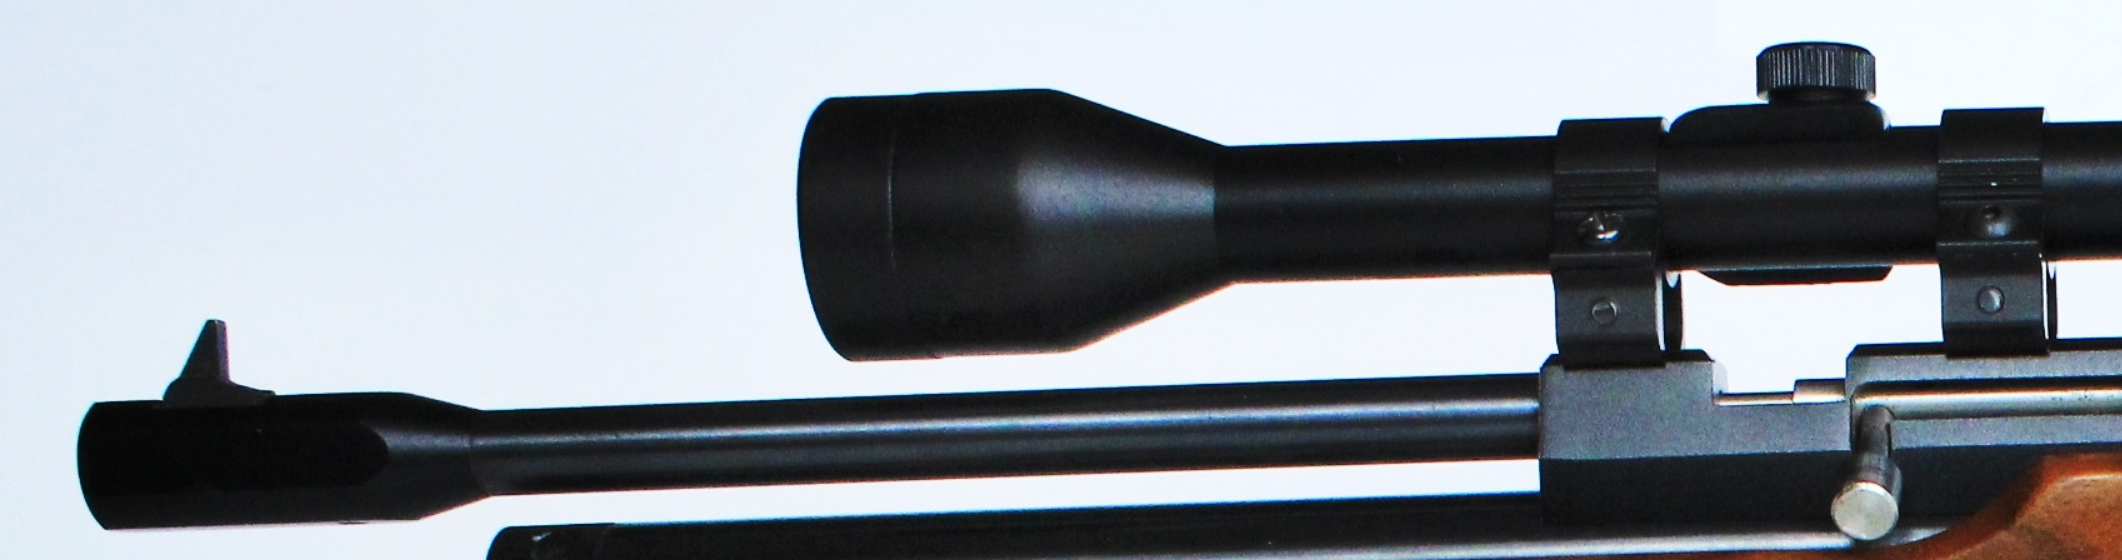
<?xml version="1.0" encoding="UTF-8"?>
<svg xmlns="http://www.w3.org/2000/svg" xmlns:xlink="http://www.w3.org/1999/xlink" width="2122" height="560">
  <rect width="100%" height="100%" fill="#ffffff" />
  <image x="0" y="0" width="2122" height="560" xlink:href="image1.png" />
</svg>
